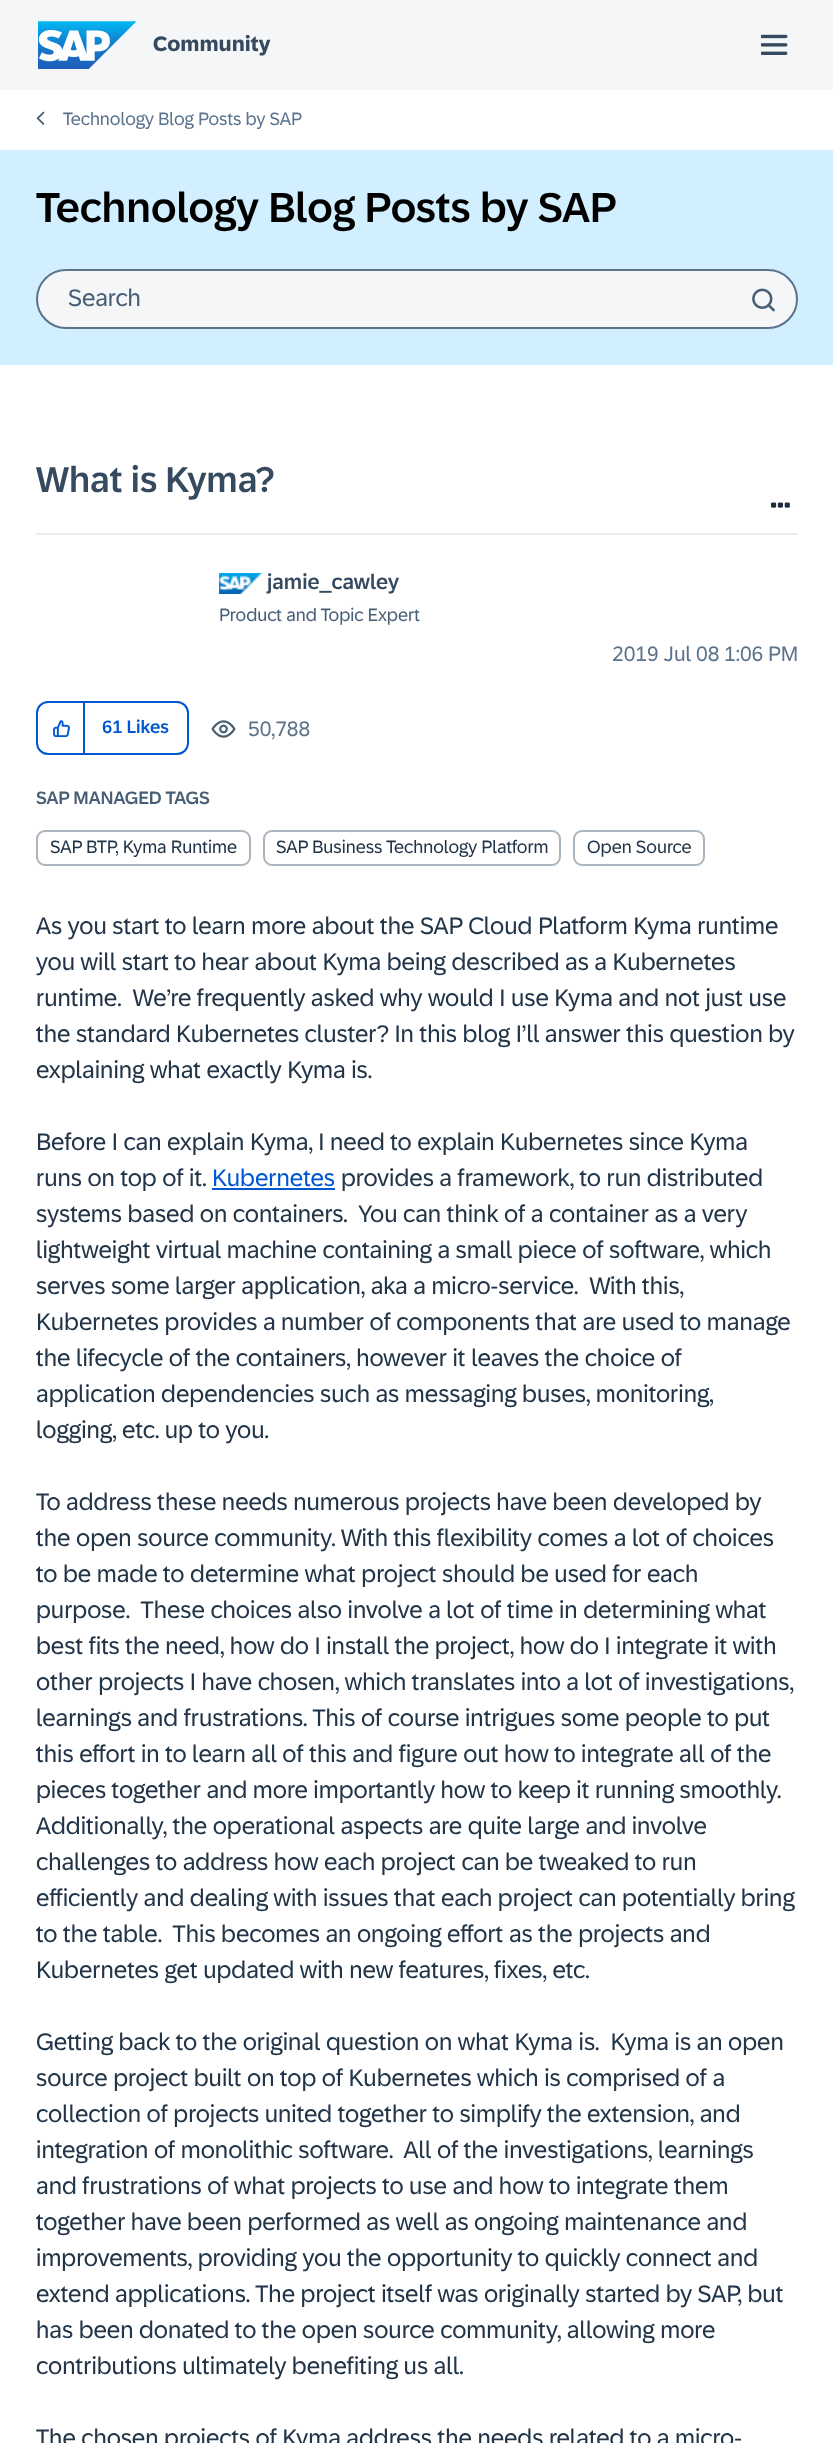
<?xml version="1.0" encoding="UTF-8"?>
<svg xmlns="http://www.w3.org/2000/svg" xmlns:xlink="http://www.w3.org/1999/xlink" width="833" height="2443">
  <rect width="100%" height="100%" fill="#ffffff" />
  <rect width="833" height="90" fill="#f5f6f7" />
  <image x="38" y="21" width="99" height="48" xlink:href="image1.png" />
  <image x="761" y="34" width="27" height="21" xlink:href="image2.png" />
  <image x="36" y="111" width="9" height="14" xlink:href="image3.png" />
  <rect y="150" width="833" height="215" fill="#d1efff" />
  <rect x="37" y="270" width="760" height="58" rx="29" fill="#f5f6f7" stroke="#5b738b" stroke-width="2" />
  <image x="752" y="288" width="23" height="24" xlink:href="image4.png" />
  <rect x="36" y="533" width="762" height="2" fill="#eaecee" />
  <image x="219" y="573" width="44" height="21" xlink:href="image5.png" />
  <image x="771" y="502" width="19" height="6" xlink:href="image6.png" />
  <rect x="37" y="702" width="151" height="52" rx="11" fill="none" stroke="#0057d2" stroke-width="2" />
  <rect x="83" y="702" width="2" height="53" fill="#0057d2" />
  <image x="53" y="720" width="17" height="18" xlink:href="image7.png" />
  <image x="211" y="720" width="25" height="18" xlink:href="image8.png" />
  <rect x="37" y="831" width="213" height="34" rx="8" fill="none" stroke="#a9b4be" stroke-width="2" />
  <rect x="264" y="831" width="296" height="34" rx="8" fill="none" stroke="#a9b4be" stroke-width="2" />
  <rect x="574" y="831" width="130" height="34" rx="8" fill="none" stroke="#a9b4be" stroke-width="2" />
  <rect x="212" y="1188" width="123" height="2" fill="#0057d2" />
  <text x="153" y="51" style="font-family: '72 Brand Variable'; font-size: 21px; font-weight: bold; fill: #354a5f">Community</text>
  <text x="63" y="125" style="font-family: '72 Brand Variable'; font-size: 18px; fill: #5b738b">Technology Blog Posts by SAP</text>
  <text x="36" y="222" style="font-family: '72 Brand Variable'; font-size: 42px; font-weight: 500; fill: #000000">Technology Blog Posts by SAP</text>
  <text x="68" y="306" style="font-family: '72 Brand Variable'; font-size: 24px; fill: #475e75">Search</text>
  <text x="36" y="492" style="font-family: '72 Brand Variable'; font-size: 36px; font-weight: 500; fill: #354a5f">What is Kyma?</text>
  <text x="267" y="589" style="font-family: '72 Brand Variable'; font-size: 21px; font-weight: 500; fill: #354a5f">jamie_cawley</text>
  <text x="219" y="621" style="font-family: '72 Brand Variable'; font-size: 18px; fill: #475e75">Product and Topic Expert</text>
  <text x="612" y="661" style="font-family: '72 Brand Variable'; font-size: 21px; fill: #5b738b">2019 Jul 08</text>
  <text x="724" y="661" style="font-family: '72 Brand Variable'; font-size: 21px; fill: #5b738b">1:06 PM</text>
  <text x="102" y="733" style="font-family: '72 Brand Variable'; font-size: 18px; font-weight: 500; fill: #0057d2">61 Likes</text>
  <text x="248" y="736" style="font-family: '72 Brand Variable'; font-size: 21px; fill: #5b738b">50,788</text>
  <text x="36" y="804" style="font-family: '72 Brand Variable'; font-size: 18px; font-weight: 500; fill: #475e75">SAP MANAGED TAGS</text>
  <text x="50" y="853" style="font-family: '72 Brand Variable'; font-size: 18px; fill: #223548">SAP BTP, Kyma Runtime</text>
  <text x="276" y="853" style="font-family: '72 Brand Variable'; font-size: 18px; fill: #223548">SAP Business Technology Platform</text>
  <text x="587" y="853" style="font-family: '72 Brand Variable'; font-size: 18px; fill: #223548">Open Source</text>
  <text x="36" y="934" style="font-family: '72 Brand Variable'; font-size: 24px; fill: #223548">As you start to learn more about the SAP Cloud Platform Kyma runtime</text>
  <text x="36" y="970" style="font-family: '72 Brand Variable'; font-size: 24px; fill: #223548">you will start to hear about Kyma being described as a Kubernetes</text>
  <text x="36" y="1006" style="font-family: '72 Brand Variable'; font-size: 24px; fill: #223548" xml:space="preserve">runtime.  We’re frequently asked why would I use Kyma and not just use</text>
  <text x="36" y="1042" style="font-family: '72 Brand Variable'; font-size: 24px; fill: #223548">the standard Kubernetes cluster? In this blog I’ll answer this question by</text>
  <text x="36" y="1078" style="font-family: '72 Brand Variable'; font-size: 24px; fill: #223548">explaining what exactly Kyma is.</text>
  <text x="36" y="1150" style="font-family: '72 Brand Variable'; font-size: 24px; fill: #223548">Before I can explain Kyma, I need to explain Kubernetes since Kyma</text>
  <text x="36" y="1186" style="font-family: '72 Brand Variable'; font-size: 24px; fill: #223548">runs on top of it.</text>
  <text x="212" y="1186" style="font-family: '72 Brand Variable'; font-size: 24px; fill: #0057d2">Kubernetes</text>
  <text x="341" y="1186" style="font-family: '72 Brand Variable'; font-size: 24px; fill: #223548">provides a framework, to run distributed</text>
  <text x="36" y="1222" style="font-family: '72 Brand Variable'; font-size: 24px; fill: #223548" xml:space="preserve">systems based on containers.  You can think of a container as a very</text>
  <text x="36" y="1258" style="font-family: '72 Brand Variable'; font-size: 24px; fill: #223548">lightweight virtual machine containing a small piece of software, which</text>
  <text x="36" y="1294" style="font-family: '72 Brand Variable'; font-size: 24px; fill: #223548" xml:space="preserve">serves some larger application, aka a micro-service.  With this,</text>
  <text x="36" y="1330" style="font-family: '72 Brand Variable'; font-size: 24px; fill: #223548">Kubernetes provides a number of components that are used to manage</text>
  <text x="36" y="1366" style="font-family: '72 Brand Variable'; font-size: 24px; fill: #223548">the lifecycle of the containers, however it leaves the choice of</text>
  <text x="36" y="1402" style="font-family: '72 Brand Variable'; font-size: 24px; fill: #223548">application dependencies such as messaging buses, monitoring,</text>
  <text x="36" y="1438" style="font-family: '72 Brand Variable'; font-size: 24px; fill: #223548">logging, etc. up to you.</text>
  <text x="36" y="1510" style="font-family: '72 Brand Variable'; font-size: 24px; fill: #223548">To address these needs numerous projects have been developed by</text>
  <text x="36" y="1546" style="font-family: '72 Brand Variable'; font-size: 24px; fill: #223548">the open source community. With this flexibility comes a lot of choices</text>
  <text x="36" y="1582" style="font-family: '72 Brand Variable'; font-size: 24px; fill: #223548">to be made to determine what project should be used for each</text>
  <text x="36" y="1618" style="font-family: '72 Brand Variable'; font-size: 24px; fill: #223548" xml:space="preserve">purpose.  These choices also involve a lot of time in determining what</text>
  <text x="36" y="1654" style="font-family: '72 Brand Variable'; font-size: 24px; fill: #223548">best fits the need, how do I install the project, how do I integrate it with</text>
  <text x="36" y="1690" style="font-family: '72 Brand Variable'; font-size: 24px; fill: #223548">other projects I have chosen, which translates into a lot of investigations,</text>
  <text x="36" y="1726" style="font-family: '72 Brand Variable'; font-size: 24px; fill: #223548">learnings and frustrations. This of course intrigues some people to put</text>
  <text x="36" y="1762" style="font-family: '72 Brand Variable'; font-size: 24px; fill: #223548">this effort in to learn all of this and figure out how to integrate all of the</text>
  <text x="36" y="1798" style="font-family: '72 Brand Variable'; font-size: 24px; fill: #223548">pieces together and more importantly how to keep it running smoothly.</text>
  <text x="36" y="1834" style="font-family: '72 Brand Variable'; font-size: 24px; fill: #223548">Additionally, the operational aspects are quite large and involve</text>
  <text x="36" y="1870" style="font-family: '72 Brand Variable'; font-size: 24px; fill: #223548">challenges to address how each project can be tweaked to run</text>
  <text x="36" y="1906" style="font-family: '72 Brand Variable'; font-size: 24px; fill: #223548">efficiently and dealing with issues that each project can potentially bring</text>
  <text x="36" y="1942" style="font-family: '72 Brand Variable'; font-size: 24px; fill: #223548" xml:space="preserve">to the table.  This becomes an ongoing effort as the projects and</text>
  <text x="36" y="1978" style="font-family: '72 Brand Variable'; font-size: 24px; fill: #223548">Kubernetes get updated with new features, fixes, etc.</text>
  <text x="36" y="2050" style="font-family: '72 Brand Variable'; font-size: 24px; fill: #223548" xml:space="preserve">Getting back to the original question on what Kyma is.  Kyma is an open</text>
  <text x="36" y="2086" style="font-family: '72 Brand Variable'; font-size: 24px; fill: #223548">source project built on top of Kubernetes which is comprised of a</text>
  <text x="36" y="2122" style="font-family: '72 Brand Variable'; font-size: 24px; fill: #223548">collection of projects united together to simplify the extension, and</text>
  <text x="36" y="2158" style="font-family: '72 Brand Variable'; font-size: 24px; fill: #223548" xml:space="preserve">integration of monolithic software.  All of the investigations, learnings</text>
  <text x="36" y="2194" style="font-family: '72 Brand Variable'; font-size: 24px; fill: #223548">and frustrations of what projects to use and how to integrate them</text>
  <text x="36" y="2230" style="font-family: '72 Brand Variable'; font-size: 24px; fill: #223548">together have been performed as well as ongoing maintenance and</text>
  <text x="36" y="2266" style="font-family: '72 Brand Variable'; font-size: 24px; fill: #223548">improvements, providing you the opportunity to quickly connect and</text>
  <text x="36" y="2302" style="font-family: '72 Brand Variable'; font-size: 24px; fill: #223548">extend applications. The project itself was originally started by SAP, but</text>
  <text x="36" y="2338" style="font-family: '72 Brand Variable'; font-size: 24px; fill: #223548">has been donated to the open source community, allowing more</text>
  <text x="36" y="2374" style="font-family: '72 Brand Variable'; font-size: 24px; fill: #223548">contributions ultimately benefiting us all.</text>
  <text x="36" y="2446" style="font-family: '72 Brand Variable'; font-size: 24px; fill: #223548">The chosen projects of Kyma address the needs related to a micro-</text>
</svg>
